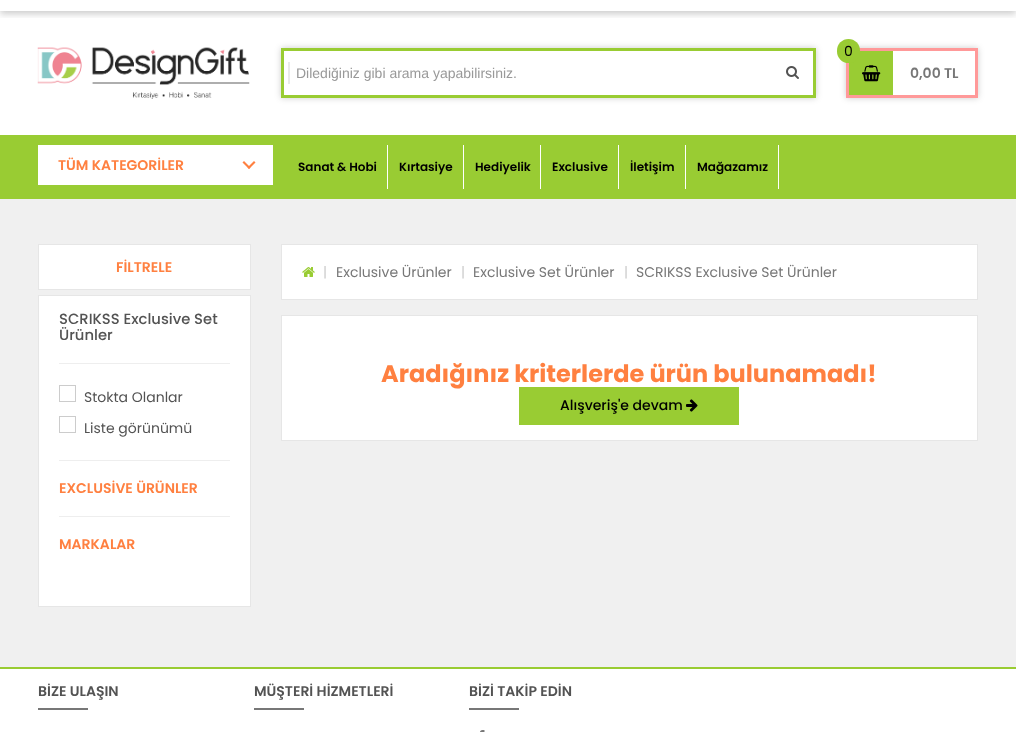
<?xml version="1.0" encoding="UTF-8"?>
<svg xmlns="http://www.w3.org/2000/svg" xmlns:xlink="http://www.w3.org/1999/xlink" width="1016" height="732">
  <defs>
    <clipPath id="clip1"><rect x="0" y="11" width="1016" height="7" /></clipPath>
    <clipPath id="clip2"><path d="M 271 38 h 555 v 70 h -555 z m 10 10 h 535 v 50 h -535 z" clip-rule="evenodd" /></clipPath>
    <clipPath id="clip3"><path d="M 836 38 h 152 v 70 h -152 z m 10 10 h 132 v 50 h -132 z" clip-rule="evenodd" /></clipPath>
  </defs>
  <rect width="100%" height="100%" fill="#ffffff" />
  <g clip-path="url(#clip1)">
    <rect y="-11" width="1016" height="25" fill="#000000" fill-opacity="0.2" filter="blur(3.5px)" />
  </g>
  <image x="37" y="47" width="213" height="52" xlink:href="image1.png" />
  <g clip-path="url(#clip2)">
    <rect x="281" y="48" width="535" height="50" fill="#000000" fill-opacity="0.2" filter="blur(3px)" />
  </g>
  <rect x="282.5" y="49.5" width="532" height="47" fill="none" stroke="#99cc33" stroke-width="3" />
  <rect x="288" y="62" width="2" height="22" fill="#e9e9e9" />
  <image x="786" y="66" width="13" height="13" xlink:href="image2.png" />
  <g clip-path="url(#clip3)">
    <rect x="846" y="48" width="132" height="50" fill="#000000" fill-opacity="0.2" filter="blur(3px)" />
  </g>
  <rect x="847.5" y="49.5" width="129" height="47" fill="none" stroke="#ff9999" stroke-width="3" />
  <rect x="849" y="51" width="44" height="44" fill="#99cc33" />
  <rect x="837" y="39" width="23" height="24" rx="11.5" fill="#99cc33" />
  <image x="862" y="65" width="19" height="17" xlink:href="image3.png" />
  <rect y="135" width="1016" height="64" fill="#99cc33" />
  <rect x="38" y="145" width="235" height="40" fill="#ffffff" />
  <path d="M 244 161 l 6.5 6.5 l -1.5 1.5 l -6.5 -6.5 z" fill="#ff8040" />
  <path d="M 247.5 167.5 l 6.5 -6.5 l 1.5 1.5 l -6.5 6.5 z" fill="#ff8040" />
  <rect x="387" y="145" width="1" height="44" fill="#ffffff" />
  <rect x="463" y="145" width="1" height="44" fill="#ffffff" />
  <rect x="540" y="145" width="1" height="44" fill="#ffffff" />
  <rect x="618" y="145" width="1" height="44" fill="#ffffff" />
  <rect x="685" y="145" width="1" height="44" fill="#ffffff" />
  <rect x="778" y="145" width="1" height="44" fill="#ffffff" />
  <rect y="199" width="1016" height="468" fill="#f0f0f0" />
  <rect x="38.5" y="244.5" width="212" height="45" fill="#ffffff" stroke="#e6e6e6" />
  <rect x="38.5" y="295.5" width="212" height="311" fill="#ffffff" stroke="#e6e6e6" />
  <rect x="59" y="363" width="171" height="1" fill="#eeeeee" />
  <rect x="59.5" y="385.5" width="16" height="16" fill="none" stroke="#cccccc" />
  <rect x="59.5" y="416.5" width="16" height="16" fill="none" stroke="#cccccc" />
  <rect x="59" y="460" width="171" height="1" fill="#eeeeee" />
  <rect x="59" y="516" width="171" height="1" fill="#eeeeee" />
  <rect x="281.5" y="244.5" width="696" height="55" fill="#ffffff" stroke="#e6e6e6" />
  <image x="302" y="267" width="13" height="10" xlink:href="image4.png" />
  <rect x="281.5" y="315.5" width="696" height="125" fill="#ffffff" stroke="#e6e6e6" />
  <rect y="667" width="1016" height="2" fill="#99cc33" />
  <rect x="38" y="708" width="50" height="2" fill="#777777" />
  <rect x="254" y="708" width="50" height="2" fill="#777777" />
  <rect x="469" y="708" width="50" height="2" fill="#777777" />
  <image x="480" y="730" width="5" height="2" xlink:href="image6.png" />
  <text x="296" y="78" style="font-family: Liberation Sans; font-size: 14px; fill: #999999">Dilediğiniz gibi arama yapabilirsiniz.</text>
  <text x="844" y="56" style="font-family: Poppins; font-size: 14px; fill: #000000">0</text>
  <text x="910" y="78" style="font-family: Poppins; font-size: 14px; font-weight: 600; fill: #777777">0,00 TL</text>
  <text x="58" y="170" style="font-family: Poppins; font-size: 14px; font-weight: 600; fill: #ff8040">TÜM KATEGORİLER</text>
  <text x="298" y="171" style="font-family: Poppins; font-size: 12px; font-weight: 600; fill: #000000">Sanat &amp; Hobi</text>
  <text x="399" y="171" style="font-family: Poppins; font-size: 12px; font-weight: 600; fill: #000000">Kırtasiye</text>
  <text x="475" y="171" style="font-family: Poppins; font-size: 12px; font-weight: 600; fill: #000000">Hediyelik</text>
  <text x="552" y="171" style="font-family: Poppins; font-size: 12px; font-weight: 600; fill: #000000">Exclusive</text>
  <text x="630" y="171" style="font-family: Poppins; font-size: 12px; font-weight: 600; fill: #000000">İletişim</text>
  <text x="697" y="171" style="font-family: Poppins; font-size: 12px; font-weight: 600; fill: #000000">Mağazamız</text>
  <text x="116" y="272" style="font-family: Poppins; font-size: 14px; font-weight: 600; fill: #ff8040">FİLTRELE</text>
  <text x="59" y="324" style="font-family: Poppins; font-size: 14.75px; font-weight: 500; fill: #535353">SCRIKSS Exclusive Set</text>
  <text x="59" y="340" style="font-family: Poppins; font-size: 14.75px; font-weight: 500; fill: #535353">Ürünler</text>
  <text x="84" y="402" style="font-family: Poppins; font-size: 14px; fill: #535353">Stokta Olanlar</text>
  <text x="84" y="433" style="font-family: Poppins; font-size: 14px; fill: #535353">Liste görünümü</text>
  <text x="59" y="493" style="font-family: Poppins; font-size: 14px; font-weight: 600; fill: #ff8040">EXCLUSİVE ÜRÜNLER</text>
  <text x="59" y="549" style="font-family: Poppins; font-size: 14px; font-weight: 600; fill: #ff8040">MARKALAR</text>
  <text x="323" y="277" style="font-family: Poppins; font-size: 14px; fill: #cccccc">|</text>
  <text x="336" y="277" style="font-family: Poppins; font-size: 14px; fill: #777777">Exclusive Ürünler</text>
  <text x="461" y="277" style="font-family: Poppins; font-size: 14px; fill: #cccccc">|</text>
  <text x="473" y="277" style="font-family: Poppins; font-size: 14px; fill: #777777">Exclusive Set Ürünler</text>
  <text x="624" y="277" style="font-family: Poppins; font-size: 14px; fill: #cccccc">|</text>
  <text x="636" y="277" style="font-family: Poppins; font-size: 14px; fill: #777777">SCRIKSS Exclusive Set Ürünler</text>
  <text x="381" y="382" style="font-family: Poppins; font-size: 24px; font-weight: bold; fill: #ff8040">Aradığınız kriterlerde ürün bulunamadı!</text>
  <rect x="519" y="387" width="220" height="38" fill="#99cc33" />
  <text x="560" y="410" style="font-family: Poppins; font-size: 14px; font-weight: 500; fill: #000000">Alışveriş'e devam</text>
  <image x="686" y="399" width="12" height="13" xlink:href="image5.png" />
  <text x="38" y="696" style="font-family: Poppins; font-size: 14px; font-weight: 600; fill: #535353">BİZE ULAŞIN</text>
  <text x="254" y="696" style="font-family: Poppins; font-size: 14px; font-weight: 600; fill: #535353">MÜŞTERİ HİZMETLERİ</text>
  <text x="469" y="696" style="font-family: Poppins; font-size: 14px; font-weight: 600; fill: #535353">BİZİ TAKİP EDİN</text>
</svg>
